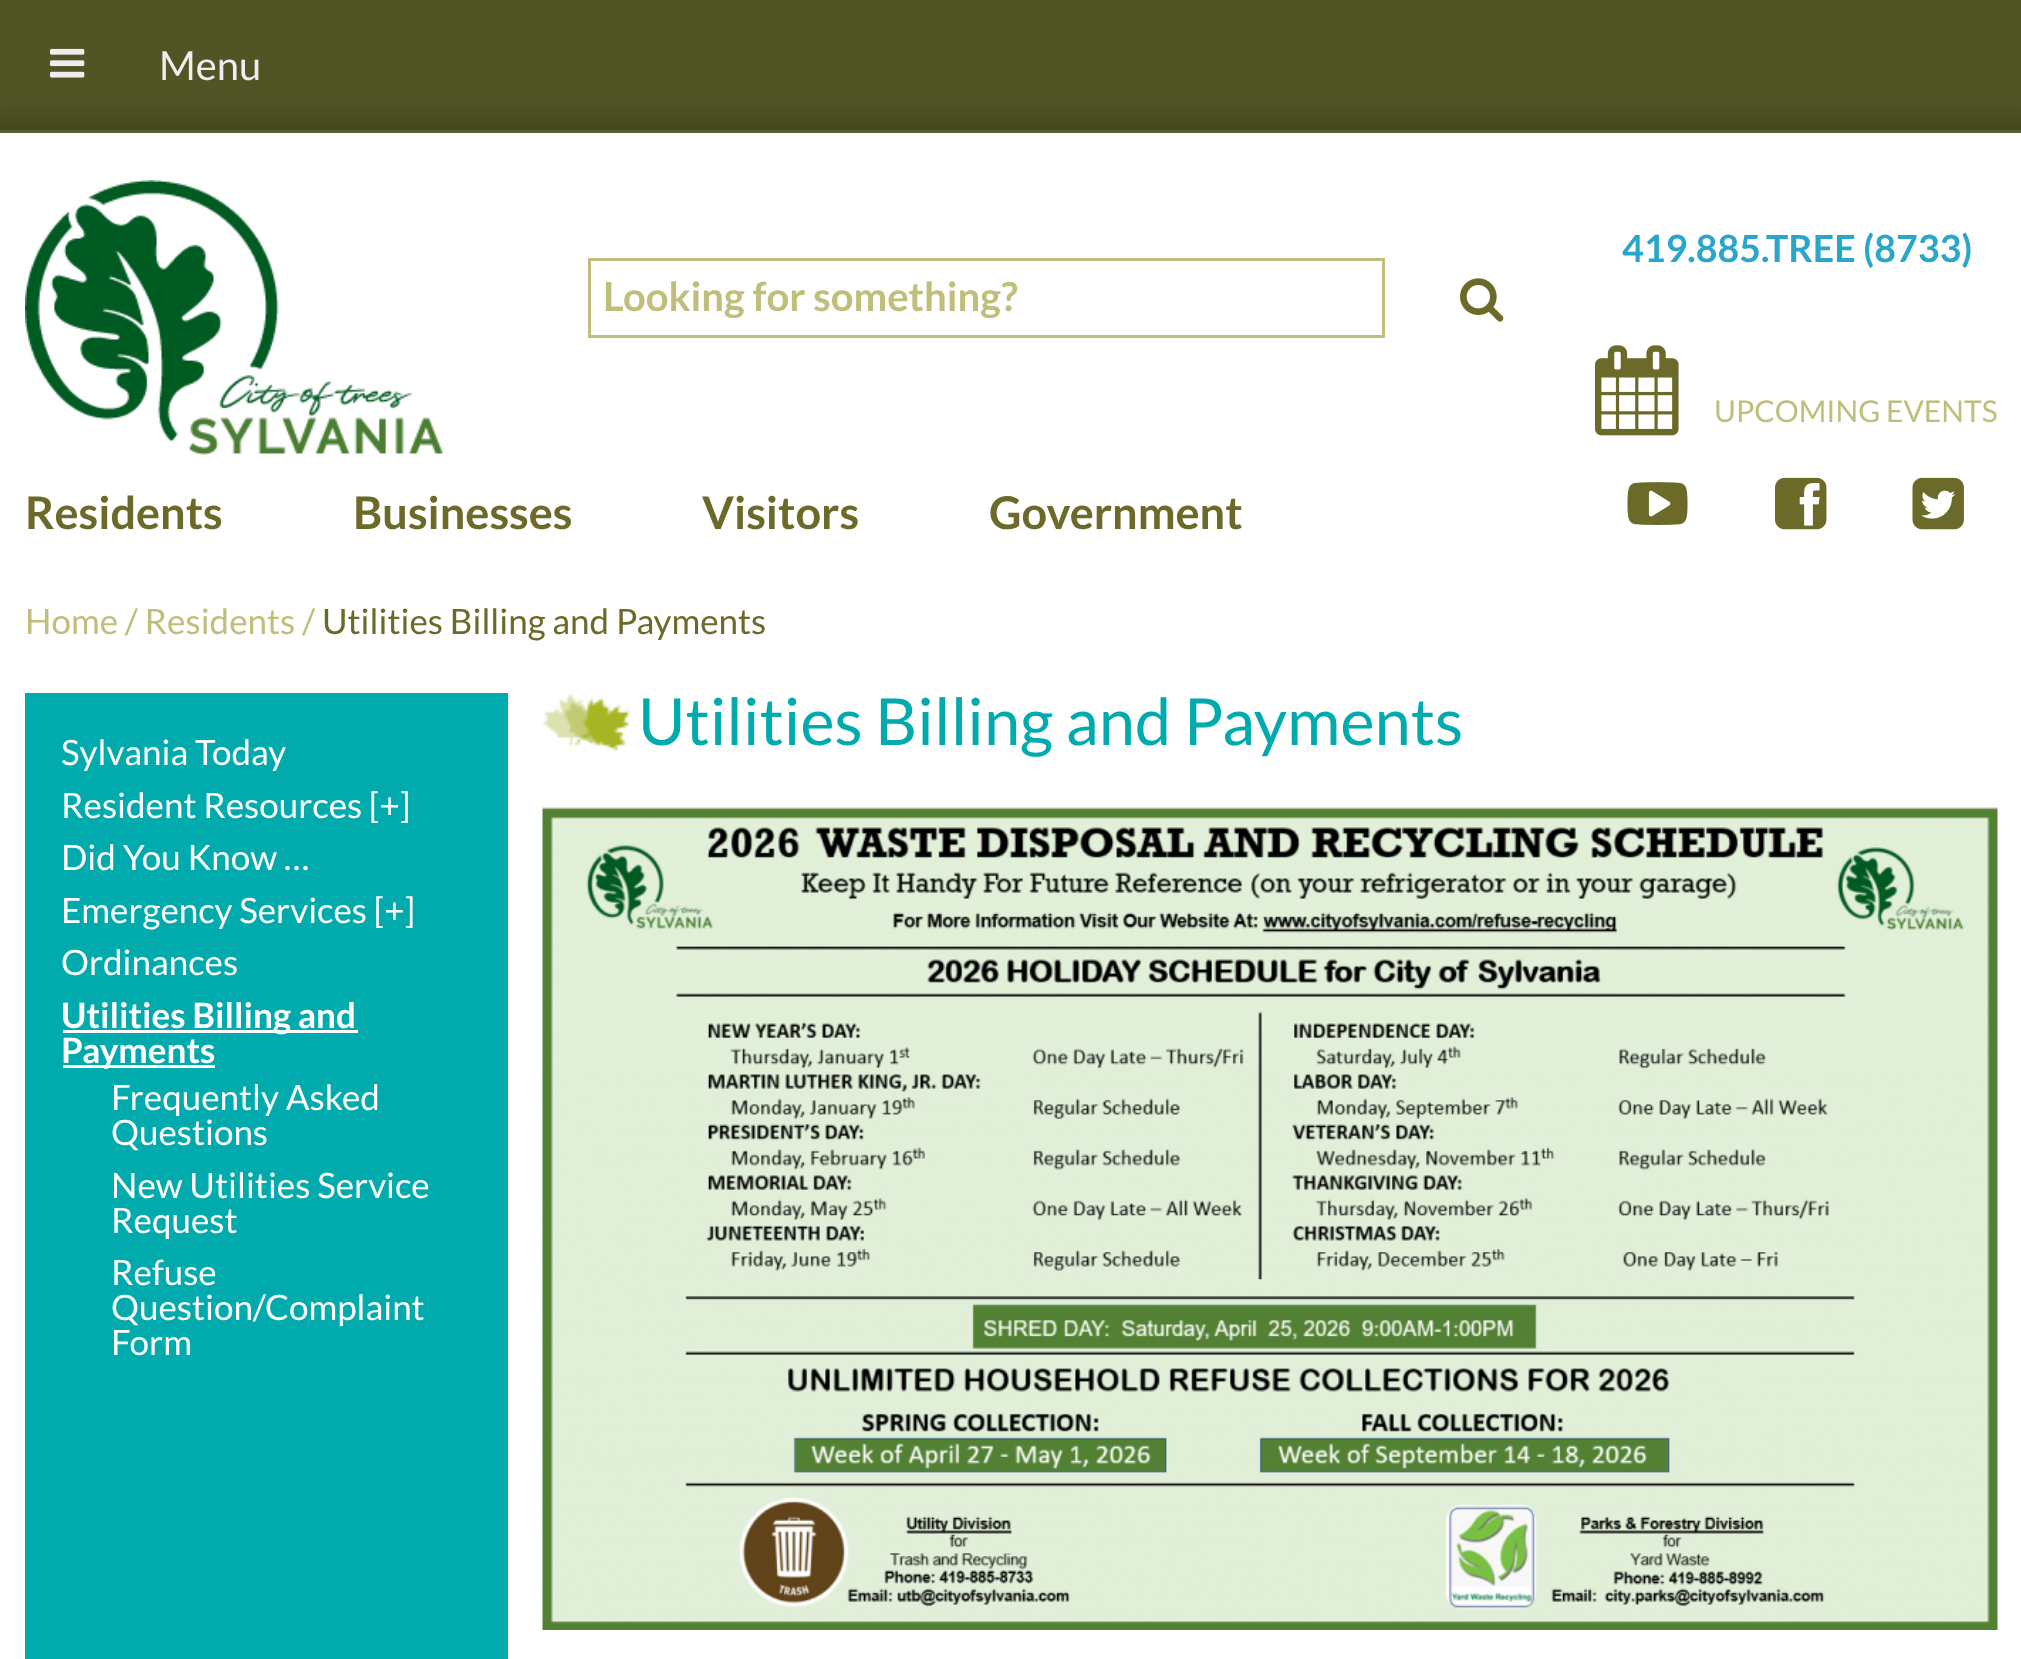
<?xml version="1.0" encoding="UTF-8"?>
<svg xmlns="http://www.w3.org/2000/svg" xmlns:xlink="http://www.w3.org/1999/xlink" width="2021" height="1659">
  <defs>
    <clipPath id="clip1"><rect x="603" y="270" width="765" height="48" /></clipPath>
  </defs>
  <rect width="100%" height="100%" fill="#515425" />
  <image x="50" y="48" width="35" height="30" xlink:href="image1.png" />
  <rect x="-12" y="118" width="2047" height="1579" fill="#252a02" fill-opacity="0.35" filter="blur(12.5px)" />
  <rect y="133" width="2021" height="1526" fill="#ffffff" />
  <rect y="130" width="2021" height="3" fill="#585d35" />
  <image x="25" y="180" width="418" height="275" xlink:href="image2.png" />
  <rect x="589.5" y="259.5" width="794" height="77" fill="none" stroke="#c0be7b" stroke-width="3" />
  <image x="1460" y="278" width="44" height="44" xlink:href="image3.png" />
  <image x="1595" y="345" width="84" height="91" xlink:href="image4.png" />
  <image x="1627" y="482" width="61" height="43" xlink:href="image5.png" />
  <image x="1775" y="477" width="52" height="53" xlink:href="image6.png" />
  <image x="1912" y="477" width="52" height="53" xlink:href="image7.png" />
  <image x="542" y="692" width="88" height="58" xlink:href="image8.png" />
  <image x="542" y="807" width="1456" height="823" xlink:href="image9.png" />
  <rect x="25" y="693" width="483" height="966" fill="#00aaad" />
  <rect x="63" y="1030" width="295" height="3" fill="#ffffff" />
  <rect x="63" y="1065" width="152" height="3" fill="#ffffff" />
  <text x="159" y="80" style="font-family: Lato; font-size: 40px; fill: #eeeeee">Menu</text>
  <text x="1622" y="262" style="font-family: Lato; font-size: 37.5px; font-weight: bold; fill: #2ba6cb">419.885.TREE (8733)</text>
  <g clip-path="url(#clip1)">
    <text x="603" y="311" style="font-family: Lato; font-size: 40px; font-weight: bold; fill: #c0be7b">Looking for something?</text>
  </g>
  <text x="1714" y="422" style="font-family: Lato; font-size: 30px; fill: #c0be7b">UPCOMING EVENTS</text>
  <text x="25" y="529" style="font-family: Lato; font-size: 45px; font-weight: bold; fill: #6c6a28">Residents</text>
  <text x="353" y="529" style="font-family: Lato; font-size: 45px; font-weight: bold; fill: #6c6a28">Businesses</text>
  <text x="702" y="529" style="font-family: Lato; font-size: 45px; font-weight: bold; fill: #6c6a28">Visitors</text>
  <text x="989" y="529" style="font-family: Lato; font-size: 45px; font-weight: bold; fill: #6c6a28">Government</text>
  <text x="25" y="634" style="font-family: Lato; font-size: 35px; fill: #c0be7b">Home / Residents /</text>
  <text x="322" y="634" style="font-family: Lato; font-size: 35px; fill: #6c6a28">Utilities Billing and Payments</text>
  <text x="638" y="745" style="font-family: Lato; font-size: 65px; fill: #00aaad">Utilities Billing and Payments</text>
  <text x="61" y="765" style="font-family: Lato; font-size: 35px; fill: #ffffff">Sylvania Today</text>
  <text x="61" y="818" style="font-family: Lato; font-size: 35px; fill: #ffffff">Resident Resources [+]</text>
  <text x="61" y="870" style="font-family: Lato; font-size: 35px; fill: #ffffff">Did You Know …</text>
  <text x="61" y="923" style="font-family: Lato; font-size: 35px; fill: #ffffff">Emergency Services [+]</text>
  <text x="61" y="975" style="font-family: Lato; font-size: 35px; fill: #ffffff">Ordinances</text>
  <text x="61" y="1028" style="font-family: Lato; font-size: 35px; font-weight: bold; fill: #ffffff">Utilities Billing and</text>
  <text x="61" y="1063" style="font-family: Lato; font-size: 35px; font-weight: bold; fill: #ffffff">Payments</text>
  <text x="111" y="1110" style="font-family: Lato; font-size: 35px; fill: #ffffff">Frequently Asked</text>
  <text x="111" y="1145" style="font-family: Lato; font-size: 35px; fill: #ffffff">Questions</text>
  <text x="111" y="1198" style="font-family: Lato; font-size: 35px; fill: #ffffff">New Utilities Service</text>
  <text x="111" y="1233" style="font-family: Lato; font-size: 35px; fill: #ffffff">Request</text>
  <text x="111" y="1285" style="font-family: Lato; font-size: 35px; fill: #ffffff">Refuse</text>
  <text x="111" y="1320" style="font-family: Lato; font-size: 35px; fill: #ffffff">Question/Complaint</text>
  <text x="111" y="1355" style="font-family: Lato; font-size: 35px; fill: #ffffff">Form</text>
</svg>
